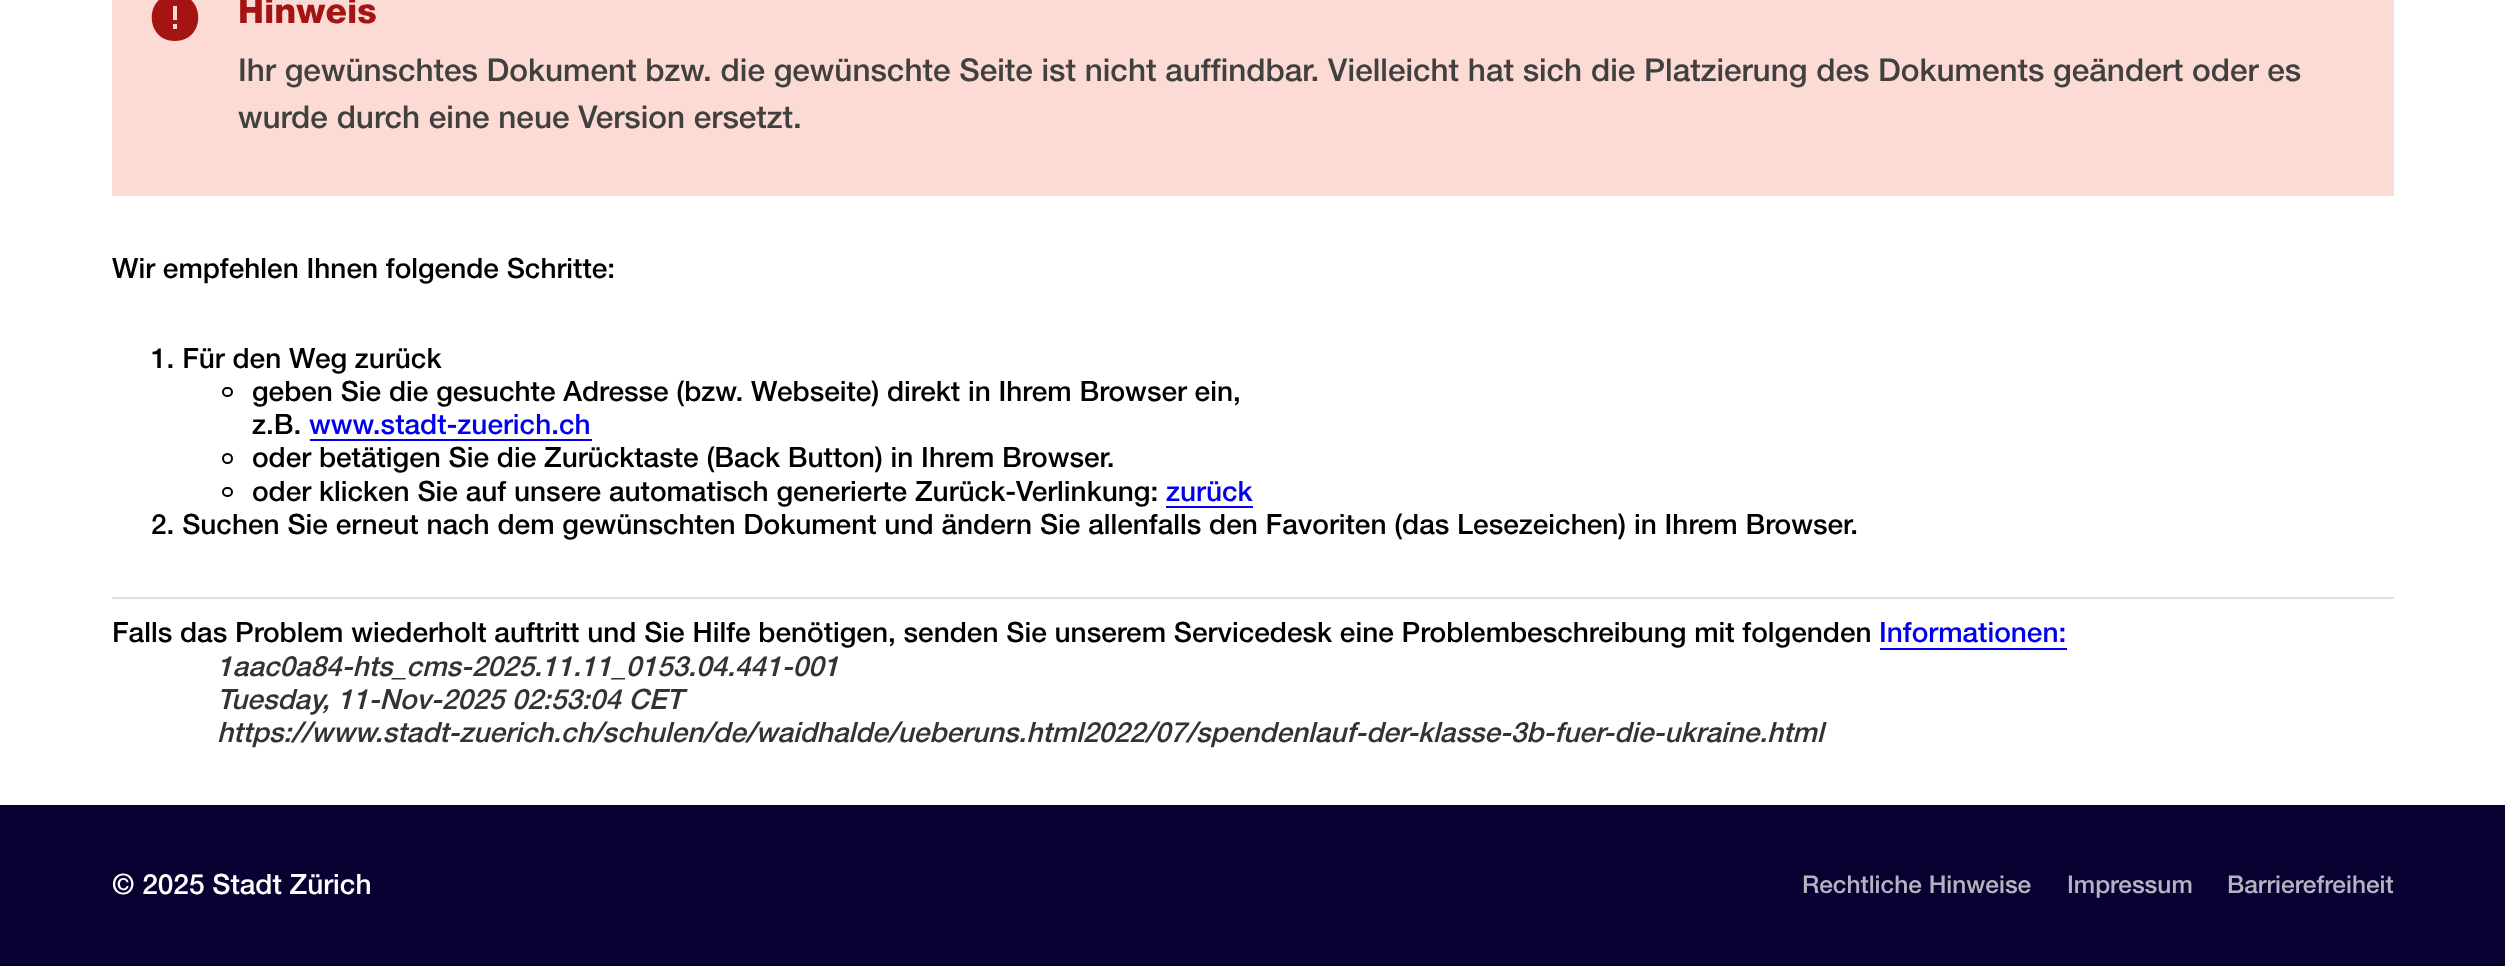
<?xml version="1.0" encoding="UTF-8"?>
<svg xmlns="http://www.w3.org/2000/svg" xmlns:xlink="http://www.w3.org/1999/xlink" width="2505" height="966">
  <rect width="100%" height="100%" fill="#ffffff" />
  <rect x="112" width="2282" height="196" fill="#fbdbd4" />
  <path d="M 175 41 c -31 0 -31 -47 0 -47 c 31 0 31 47 0 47 m -2 -17 v 5 h 4 v -5 z m 0 -18 v 14 h 4 v -14 z" fill="#a31413" />
  <rect x="223" y="388" width="9" height="8" rx="4" fill="none" stroke="#000000" stroke-width="2" />
  <rect x="310" y="439" width="282" height="2" fill="#0000ee" />
  <circle cx="227.5" cy="458.5" r="4.5" fill="none" stroke="#000000" stroke-width="2" />
  <rect x="223" y="488" width="9" height="8" rx="4" fill="none" stroke="#000000" stroke-width="2" />
  <rect x="1166" y="506" width="87" height="2" fill="#0000ee" />
  <rect x="112" y="597" width="2282" height="2" fill="#dedede" />
  <rect x="1880" y="648" width="187" height="2" fill="#0000ee" />
  <rect y="805" width="2505" height="161" fill="#070030" />
  <text x="238" y="23" style="font-family: 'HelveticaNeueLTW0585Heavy'; font-size: 35px; font-weight: 900; fill: #a31413">Hinweis</text>
  <text x="238" y="81" style="font-family: 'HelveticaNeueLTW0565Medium'; font-size: 31.5px; font-weight: 500; fill: #404040">Ihr gewünschtes Dokument bzw. die gewünschte Seite ist nicht auffindbar. Vielleicht hat sich die Platzierung des Dokuments geändert oder es</text>
  <text x="238" y="128" style="font-family: 'HelveticaNeueLTW0565Medium'; font-size: 31.5px; font-weight: 500; fill: #404040">wurde durch eine neue Version ersetzt.</text>
  <text x="112" y="278" style="font-family: 'HelveticaNeueLTW0565Medium'; font-size: 28px; font-weight: 500; fill: #000000">Wir empfehlen Ihnen folgende Schritte:</text>
  <text x="151" y="368" style="font-family: 'HelveticaNeueLTW0565Medium'; font-size: 28px; font-weight: 500; fill: #000000">1. Für den Weg zurück</text>
  <text x="252" y="401" style="font-family: 'HelveticaNeueLTW0565Medium'; font-size: 28px; font-weight: 500; fill: #000000">geben Sie die gesuchte Adresse (bzw. Webseite) direkt in Ihrem Browser ein,</text>
  <text x="252" y="434" style="font-family: 'HelveticaNeueLTW0565Medium'; font-size: 28px; font-weight: 500; fill: #000000">z.B.</text>
  <text x="309" y="434" style="font-family: 'HelveticaNeueLTW0565Medium'; font-size: 28px; font-weight: 500; fill: #0000ee">www.stadt-zuerich.ch</text>
  <text x="252" y="467" style="font-family: 'HelveticaNeueLTW0565Medium'; font-size: 28px; font-weight: 500; fill: #000000">oder betätigen Sie die Zurücktaste (Back Button) in Ihrem Browser.</text>
  <text x="252" y="501" style="font-family: 'HelveticaNeueLTW0565Medium'; font-size: 28px; font-weight: 500; fill: #000000">oder klicken Sie auf unsere automatisch generierte Zurück-Verlinkung:</text>
  <text x="1166" y="501" style="font-family: 'HelveticaNeueLTW0565Medium'; font-size: 28px; font-weight: 500; fill: #0000ee">zurück</text>
  <text x="151" y="534" style="font-family: 'HelveticaNeueLTW0565Medium'; font-size: 28px; font-weight: 500; fill: #000000">2. Suchen Sie erneut nach dem gewünschten Dokument und ändern Sie allenfalls den Favoriten (das Lesezeichen) in Ihrem Browser.</text>
  <text x="112" y="642" style="font-family: 'HelveticaNeueLTW0565Medium'; font-size: 28px; font-weight: 500; fill: #000000">Falls das Problem wiederholt auftritt und Sie Hilfe benötigen, senden Sie unserem Servicedesk eine Problembeschreibung mit folgenden</text>
  <text x="1879" y="642" style="font-family: 'HelveticaNeueLTW0565Medium'; font-size: 28px; font-weight: 500; fill: #0000ee">Informationen:</text>
  <text x="217" y="676" style="font-family: 'HelveticaNeueLTW0565Medium'; font-size: 28px; font-weight: 500; font-style: italic; fill: #333333">1aac0a84-hts_cms-2025.11.11_0153.04.441-001</text>
  <text x="217" y="709" style="font-family: 'HelveticaNeueLTW0565Medium'; font-size: 28px; font-weight: 500; font-style: italic; fill: #333333">Tuesday, 11-Nov-2025 02:53:04 CET</text>
  <text x="217" y="742" style="font-family: 'HelveticaNeueLTW0565Medium'; font-size: 28px; font-weight: 500; font-style: italic; fill: #333333">https://www.stadt-zuerich.ch/schulen/de/waidhalde/ueberuns.html2022/07/spendenlauf-der-klasse-3b-fuer-die-ukraine.html</text>
  <text x="112" y="894" style="font-family: 'HelveticaNeueLTW0565Medium'; font-size: 28px; font-weight: 500; fill: #ffffff">© 2025 Stadt Zürich</text>
  <text x="1802" y="893" style="font-family: 'HelveticaNeueLTW0565Medium'; font-size: 24.5px; font-weight: 500; fill: #b5b3c1">Rechtliche Hinweise</text>
  <text x="2067" y="893" style="font-family: 'HelveticaNeueLTW0565Medium'; font-size: 24.5px; font-weight: 500; fill: #b5b3c1">Impressum</text>
  <text x="2227" y="893" style="font-family: 'HelveticaNeueLTW0565Medium'; font-size: 24.5px; font-weight: 500; fill: #b5b3c1">Barrierefreiheit</text>
</svg>
